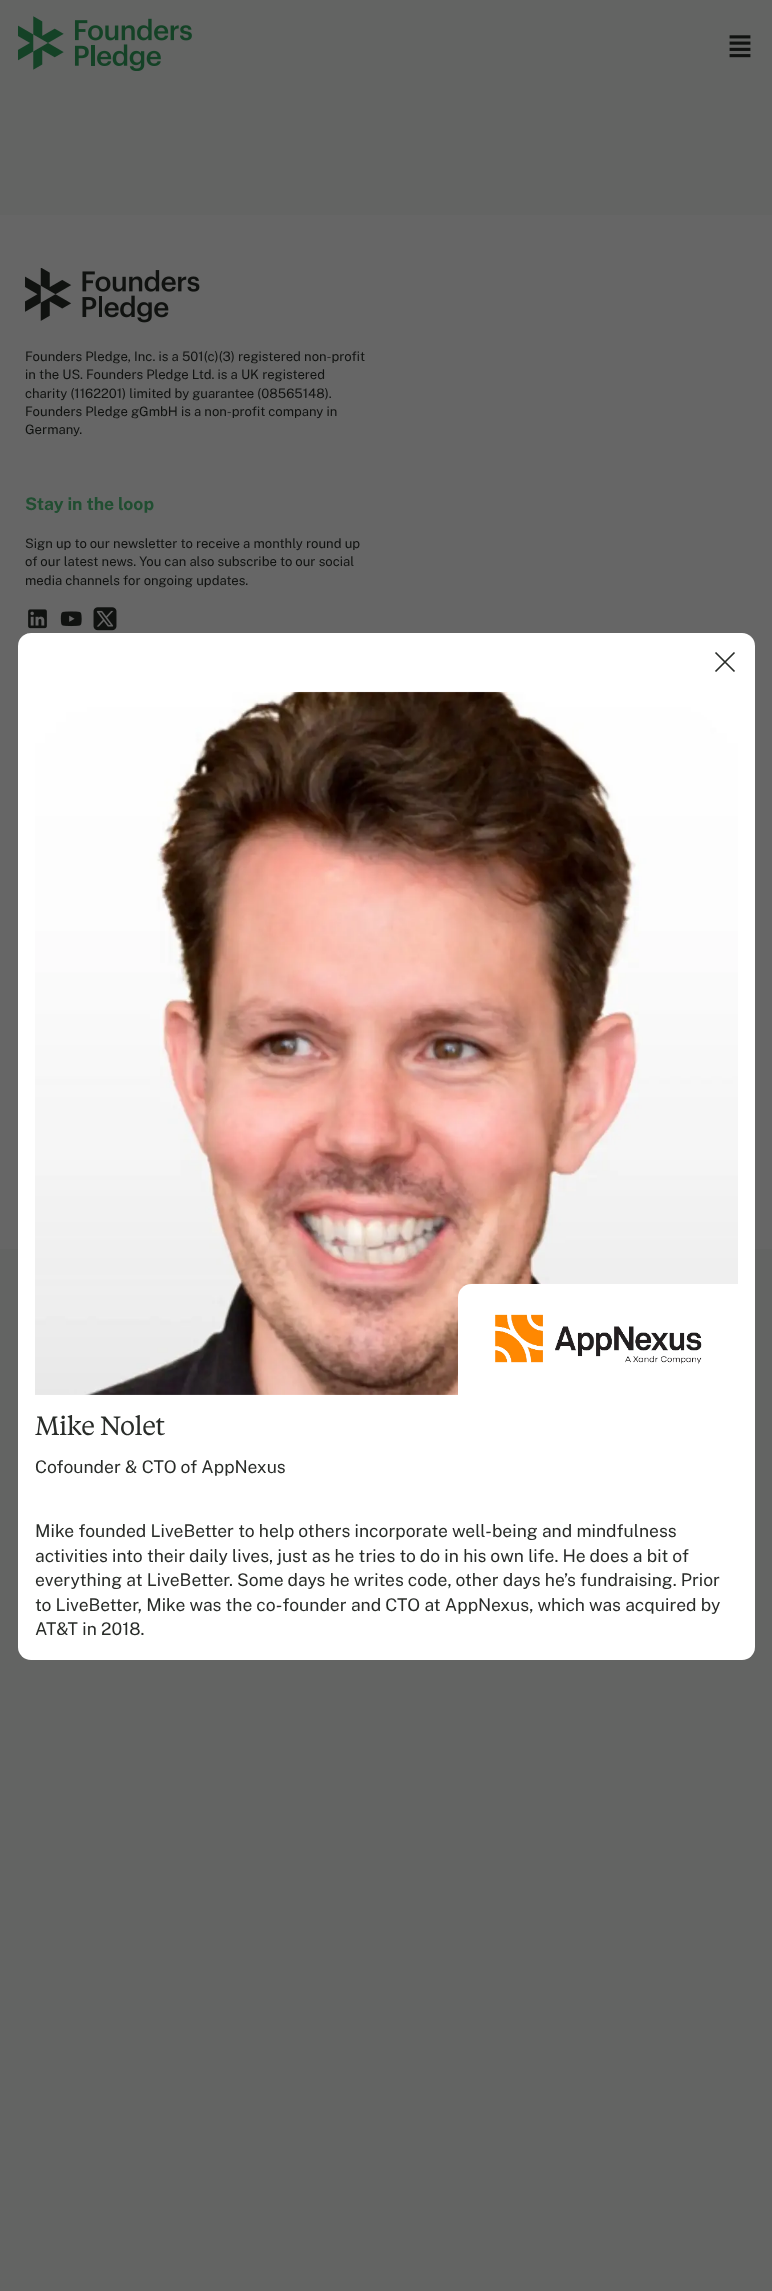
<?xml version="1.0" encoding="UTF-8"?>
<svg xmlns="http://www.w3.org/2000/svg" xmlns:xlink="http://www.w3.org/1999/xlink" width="772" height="2291">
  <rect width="100%" height="100%" fill="#636463" />
  <image x="18" y="16" width="174" height="55" xlink:href="image1.png" />
  <image x="729" y="35" width="22" height="23" xlink:href="image2.png" />
  <rect y="215" width="772" height="1034" fill="#666666" />
  <image x="25" y="268" width="175" height="55" xlink:href="image3.png" />
  <image x="28" y="609" width="19" height="20" xlink:href="image4.png" />
  <image x="60" y="611" width="22" height="16" xlink:href="image5.png" />
  <image x="93" y="607" width="24" height="24" xlink:href="image6.png" />
  <rect x="18" y="633" width="737" height="1027" rx="13" fill="#ffffff" />
  <path d="M 715.5 652.5 l 19 19 m 0 -19 l -19 19" fill="none" stroke="#292c29" stroke-width="1.7" stroke-linejoin="round" />
  <image x="35" y="691" width="703" height="704" xlink:href="image7.png" />
  <path d="M 471 1284 h 268 v 112 h -281 v -99 c 0 -7 6 -13 13 -13 z" fill="#ffffff" />
  <image x="495" y="1314" width="207" height="50" xlink:href="image8.png" />
  <text x="25" y="361" style="font-family: Public Sans; font-size: 13.1px; fill: #101210">Founders Pledge, Inc. is a 501(c)(3) registered non-profit</text>
  <text x="25" y="379" style="font-family: Public Sans; font-size: 13.1px; fill: #101210">in the US. Founders Pledge Ltd. is a UK registered</text>
  <text x="25" y="398" style="font-family: Public Sans; font-size: 13.1px; fill: #101210">charity (1162201) limited by guarantee (08565148).</text>
  <text x="25" y="416" style="font-family: Public Sans; font-size: 13.1px; fill: #101210">Founders Pledge gGmbH is a non-profit company in</text>
  <text x="25" y="434" style="font-family: Public Sans; font-size: 13.1px; fill: #101210">Germany.</text>
  <text x="25" y="510" style="font-family: Public Sans; font-size: 17.5px; font-weight: bold; fill: #204e31">Stay in the loop</text>
  <text x="25" y="548" style="font-family: Public Sans; font-size: 13.1px; fill: #101210">Sign up to our newsletter to receive a monthly round up</text>
  <text x="25" y="566" style="font-family: Public Sans; font-size: 13.1px; fill: #101210">of our latest news. You can also subscribe to our social</text>
  <text x="25" y="585" style="font-family: Public Sans; font-size: 13.1px; fill: #101210">media channels for ongoing updates.</text>
  <text x="35" y="1435" style="font-family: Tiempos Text; font-size: 26.25px; letter-spacing: -0.5px; fill: #292c29">Mike Nolet</text>
  <text x="35" y="1473" style="font-family: Public Sans; font-size: 17.5px; fill: #292c29">Cofounder &amp; CTO of AppNexus</text>
  <text x="35" y="1537" style="font-family: Public Sans; font-size: 17.5px; fill: #292c29">Mike founded LiveBetter to help others incorporate well-being and mindfulness</text>
  <text x="35" y="1562" style="font-family: Public Sans; font-size: 17.5px; fill: #292c29">activities into their daily lives, just as he tries to do in his own life. He does a bit of</text>
  <text x="35" y="1586" style="font-family: Public Sans; font-size: 17.5px; fill: #292c29">everything at LiveBetter. Some days he writes code, other days he’s fundraising. Prior</text>
  <text x="35" y="1611" style="font-family: Public Sans; font-size: 17.5px; fill: #292c29">to LiveBetter, Mike was the co-founder and CTO at AppNexus, which was acquired by</text>
  <text x="35" y="1635" style="font-family: Public Sans; font-size: 17.5px; fill: #292c29">AT&amp;T in 2018.</text>
</svg>
